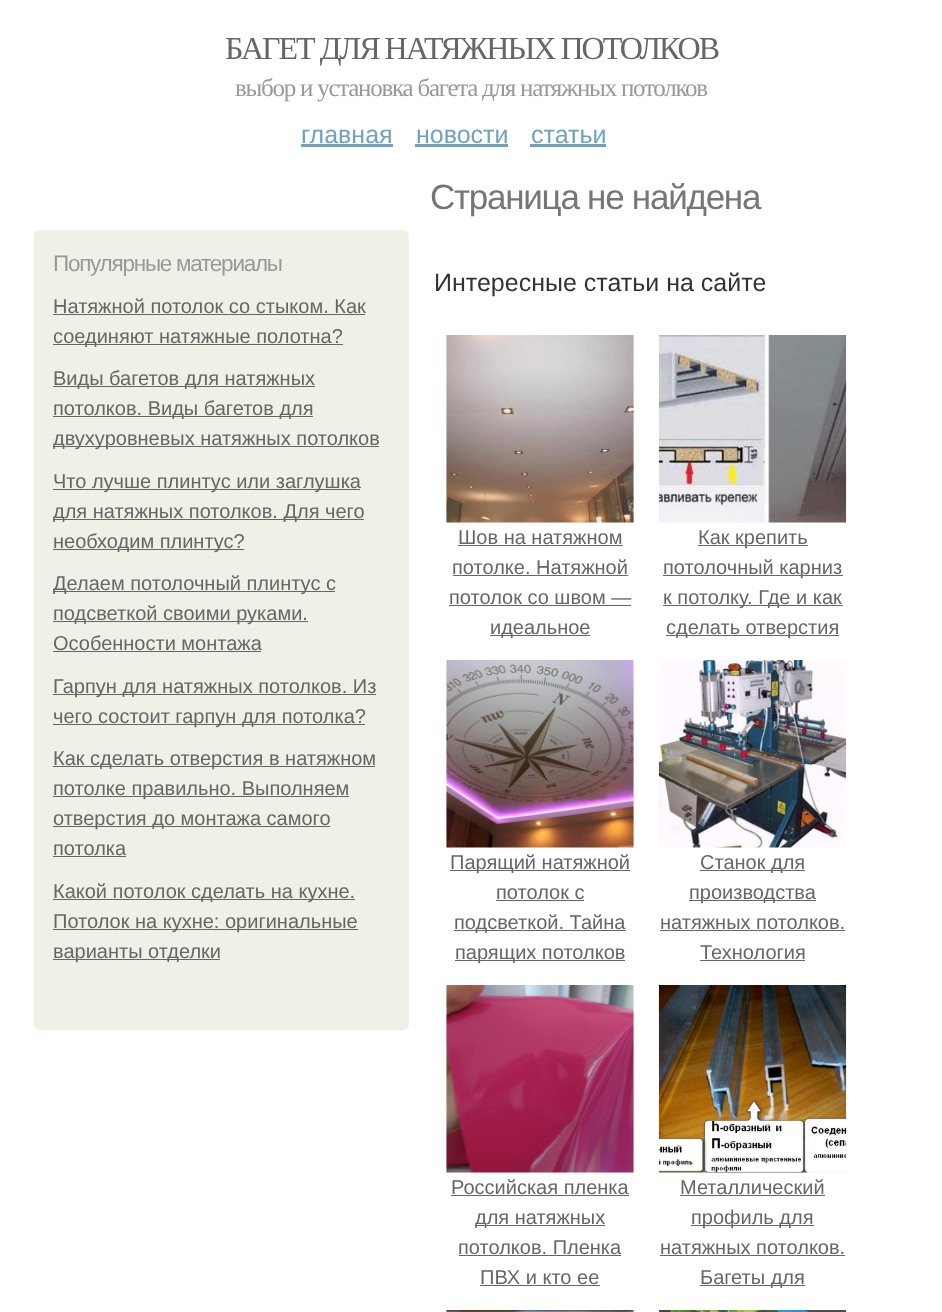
<?xml version="1.0" encoding="UTF-8"?>
<svg xmlns="http://www.w3.org/2000/svg" xmlns:xlink="http://www.w3.org/1999/xlink" width="942" height="1312">
  <rect width="100%" height="100%" fill="#ffffff" />
  <rect x="301" y="144" width="92" height="3" fill="#6da3bd" />
  <rect x="415" y="144" width="93" height="3" fill="#6da3bd" />
  <rect x="530" y="144" width="76" height="3" fill="#6da3bd" />
  <rect x="34" y="230" width="375" height="800" rx="6" fill="#f0f0e7" />
  <rect x="53" y="314" width="312" height="1" fill="#666666" />
  <rect x="53" y="344" width="290" height="1" fill="#666666" />
  <rect x="53" y="386" width="262" height="1" fill="#666666" />
  <rect x="53" y="416" width="260" height="1" fill="#666666" />
  <rect x="53" y="446" width="326" height="1" fill="#666666" />
  <rect x="53" y="489" width="307" height="1" fill="#666666" />
  <rect x="53" y="519" width="311" height="1" fill="#666666" />
  <rect x="53" y="549" width="191" height="1" fill="#666666" />
  <rect x="53" y="591" width="282" height="1" fill="#666666" />
  <rect x="53" y="621" width="255" height="1" fill="#666666" />
  <rect x="53" y="651" width="208" height="1" fill="#666666" />
  <rect x="53" y="694" width="323" height="1" fill="#666666" />
  <rect x="53" y="724" width="312" height="1" fill="#666666" />
  <rect x="53" y="766" width="322" height="1" fill="#666666" />
  <rect x="53" y="796" width="296" height="1" fill="#666666" />
  <rect x="53" y="826" width="277" height="1" fill="#666666" />
  <rect x="53" y="856" width="73" height="1" fill="#666666" />
  <rect x="53" y="899" width="302" height="1" fill="#666666" />
  <rect x="53" y="929" width="305" height="1" fill="#666666" />
  <rect x="53" y="959" width="167" height="1" fill="#666666" />
  <image x="446" y="335" width="188" height="188" xlink:href="image1.png" />
  <rect x="458" y="545" width="165" height="1" fill="#666666" />
  <rect x="453" y="575" width="175" height="1" fill="#666666" />
  <rect x="449" y="605" width="182" height="1" fill="#666666" />
  <rect x="490" y="635" width="100" height="1" fill="#666666" />
  <image x="658" y="335" width="189" height="188" xlink:href="image2.png" />
  <rect x="698" y="545" width="110" height="1" fill="#666666" />
  <rect x="663" y="575" width="180" height="1" fill="#666666" />
  <rect x="663" y="605" width="180" height="1" fill="#666666" />
  <rect x="666" y="635" width="173" height="1" fill="#666666" />
  <image x="446" y="660" width="188" height="188" xlink:href="image3.png" />
  <rect x="450" y="870" width="180" height="1" fill="#666666" />
  <rect x="496" y="900" width="88" height="1" fill="#666666" />
  <rect x="454" y="930" width="172" height="1" fill="#666666" />
  <rect x="455" y="960" width="170" height="1" fill="#666666" />
  <image x="658" y="660" width="189" height="188" xlink:href="image4.png" />
  <rect x="700" y="870" width="105" height="1" fill="#666666" />
  <rect x="689" y="900" width="127" height="1" fill="#666666" />
  <rect x="660" y="930" width="185" height="1" fill="#666666" />
  <rect x="700" y="960" width="105" height="1" fill="#666666" />
  <image x="446" y="985" width="188" height="188" xlink:href="image5.png" />
  <rect x="451" y="1195" width="178" height="1" fill="#666666" />
  <rect x="475" y="1225" width="130" height="1" fill="#666666" />
  <rect x="459" y="1255" width="162" height="1" fill="#666666" />
  <rect x="480" y="1285" width="120" height="1" fill="#666666" />
  <image x="658" y="985" width="189" height="188" xlink:href="image6.png" />
  <rect x="680" y="1195" width="145" height="1" fill="#666666" />
  <rect x="691" y="1225" width="123" height="1" fill="#666666" />
  <rect x="660" y="1255" width="185" height="1" fill="#666666" />
  <rect x="700" y="1285" width="105" height="1" fill="#666666" />
  <image x="446" y="1310" width="188" height="2" xlink:href="image7.png" />
  <image x="658" y="1310" width="189" height="2" xlink:href="image8.png" />
  <text x="225" y="59" style="font-family: Liberation Serif; font-size: 32px; letter-spacing: -2px; fill: #666666">БАГЕТ ДЛЯ НАТЯЖНЫХ ПОТОЛКОВ</text>
  <text x="235" y="96" style="font-family: Liberation Serif; font-size: 25px; letter-spacing: -1.25px; fill: #999999">выбор и установка багета для натяжных потолков</text>
  <text x="301" y="143" style="font-family: Liberation Sans; font-size: 25px; fill: #6da3bd">главная</text>
  <text x="416" y="143" style="font-family: Liberation Sans; font-size: 25px; fill: #6da3bd">новости</text>
  <text x="531" y="143" style="font-family: Liberation Sans; font-size: 25px; fill: #6da3bd">статьи</text>
  <text x="430" y="209" style="font-family: Liberation Sans; font-size: 35px; letter-spacing: -1.25px; fill: #767676">Страница не найдена</text>
  <text x="53" y="271" style="font-family: Liberation Sans; font-size: 22.5px; letter-spacing: -1.25px; fill: #999999">Популярные материалы</text>
  <text x="53" y="313" style="font-family: Liberation Sans; font-size: 20px; fill: #666666">Натяжной потолок со стыком. Как</text>
  <text x="53" y="343" style="font-family: Liberation Sans; font-size: 20px; fill: #666666">соединяют натяжные полотна?</text>
  <text x="53" y="385" style="font-family: Liberation Sans; font-size: 20px; fill: #666666">Виды багетов для натяжных</text>
  <text x="53" y="415" style="font-family: Liberation Sans; font-size: 20px; fill: #666666">потолков. Виды багетов для</text>
  <text x="53" y="445" style="font-family: Liberation Sans; font-size: 20px; fill: #666666">двухуровневых натяжных потолков</text>
  <text x="53" y="488" style="font-family: Liberation Sans; font-size: 20px; fill: #666666">Что лучше плинтус или заглушка</text>
  <text x="53" y="518" style="font-family: Liberation Sans; font-size: 20px; fill: #666666">для натяжных потолков. Для чего</text>
  <text x="53" y="548" style="font-family: Liberation Sans; font-size: 20px; fill: #666666">необходим плинтус?</text>
  <text x="53" y="590" style="font-family: Liberation Sans; font-size: 20px; fill: #666666">Делаем потолочный плинтус с</text>
  <text x="53" y="620" style="font-family: Liberation Sans; font-size: 20px; fill: #666666">подсветкой своими руками.</text>
  <text x="53" y="650" style="font-family: Liberation Sans; font-size: 20px; fill: #666666">Особенности монтажа</text>
  <text x="53" y="693" style="font-family: Liberation Sans; font-size: 20px; fill: #666666">Гарпун для натяжных потолков. Из</text>
  <text x="53" y="723" style="font-family: Liberation Sans; font-size: 20px; fill: #666666">чего состоит гарпун для потолка?</text>
  <text x="53" y="765" style="font-family: Liberation Sans; font-size: 20px; fill: #666666">Как сделать отверстия в натяжном</text>
  <text x="53" y="795" style="font-family: Liberation Sans; font-size: 20px; fill: #666666">потолке правильно. Выполняем</text>
  <text x="53" y="825" style="font-family: Liberation Sans; font-size: 20px; fill: #666666">отверстия до монтажа самого</text>
  <text x="53" y="855" style="font-family: Liberation Sans; font-size: 20px; fill: #666666">потолка</text>
  <text x="53" y="898" style="font-family: Liberation Sans; font-size: 20px; fill: #666666">Какой потолок сделать на кухне.</text>
  <text x="53" y="928" style="font-family: Liberation Sans; font-size: 20px; fill: #666666">Потолок на кухне: оригинальные</text>
  <text x="53" y="958" style="font-family: Liberation Sans; font-size: 20px; fill: #666666">варианты отделки</text>
  <text x="434" y="291" style="font-family: Liberation Sans; font-size: 25px; fill: #333333">Интересные статьи на сайте</text>
  <text x="458" y="544" style="font-family: Liberation Sans; font-size: 20px; fill: #666666">Шов на натяжном</text>
  <text x="452" y="574" style="font-family: Liberation Sans; font-size: 20px; fill: #666666">потолке. Натяжной</text>
  <text x="449" y="604" style="font-family: Liberation Sans; font-size: 20px; fill: #666666">потолок со швом —</text>
  <text x="490" y="634" style="font-family: Liberation Sans; font-size: 20px; fill: #666666">идеальное</text>
  <text x="698" y="544" style="font-family: Liberation Sans; font-size: 20px; fill: #666666">Как крепить</text>
  <text x="663" y="574" style="font-family: Liberation Sans; font-size: 20px; fill: #666666">потолочный карниз</text>
  <text x="663" y="604" style="font-family: Liberation Sans; font-size: 20px; fill: #666666">к потолку. Где и как</text>
  <text x="666" y="634" style="font-family: Liberation Sans; font-size: 20px; fill: #666666">сделать отверстия</text>
  <text x="450" y="869" style="font-family: Liberation Sans; font-size: 20px; fill: #666666">Парящий натяжной</text>
  <text x="496" y="899" style="font-family: Liberation Sans; font-size: 20px; fill: #666666">потолок с</text>
  <text x="454" y="929" style="font-family: Liberation Sans; font-size: 20px; fill: #666666">подсветкой. Тайна</text>
  <text x="455" y="959" style="font-family: Liberation Sans; font-size: 20px; fill: #666666">парящих потолков</text>
  <text x="700" y="869" style="font-family: Liberation Sans; font-size: 20px; fill: #666666">Станок для</text>
  <text x="689" y="899" style="font-family: Liberation Sans; font-size: 20px; fill: #666666">производства</text>
  <text x="660" y="929" style="font-family: Liberation Sans; font-size: 20px; fill: #666666">натяжных потолков.</text>
  <text x="700" y="959" style="font-family: Liberation Sans; font-size: 20px; fill: #666666">Технология</text>
  <text x="451" y="1194" style="font-family: Liberation Sans; font-size: 20px; fill: #666666">Российская пленка</text>
  <text x="475" y="1224" style="font-family: Liberation Sans; font-size: 20px; fill: #666666">для натяжных</text>
  <text x="458" y="1254" style="font-family: Liberation Sans; font-size: 20px; fill: #666666">потолков. Пленка</text>
  <text x="480" y="1284" style="font-family: Liberation Sans; font-size: 20px; fill: #666666">ПВХ и кто ее</text>
  <text x="680" y="1194" style="font-family: Liberation Sans; font-size: 20px; fill: #666666">Металлический</text>
  <text x="691" y="1224" style="font-family: Liberation Sans; font-size: 20px; fill: #666666">профиль для</text>
  <text x="660" y="1254" style="font-family: Liberation Sans; font-size: 20px; fill: #666666">натяжных потолков.</text>
  <text x="700" y="1284" style="font-family: Liberation Sans; font-size: 20px; fill: #666666">Багеты для</text>
</svg>
